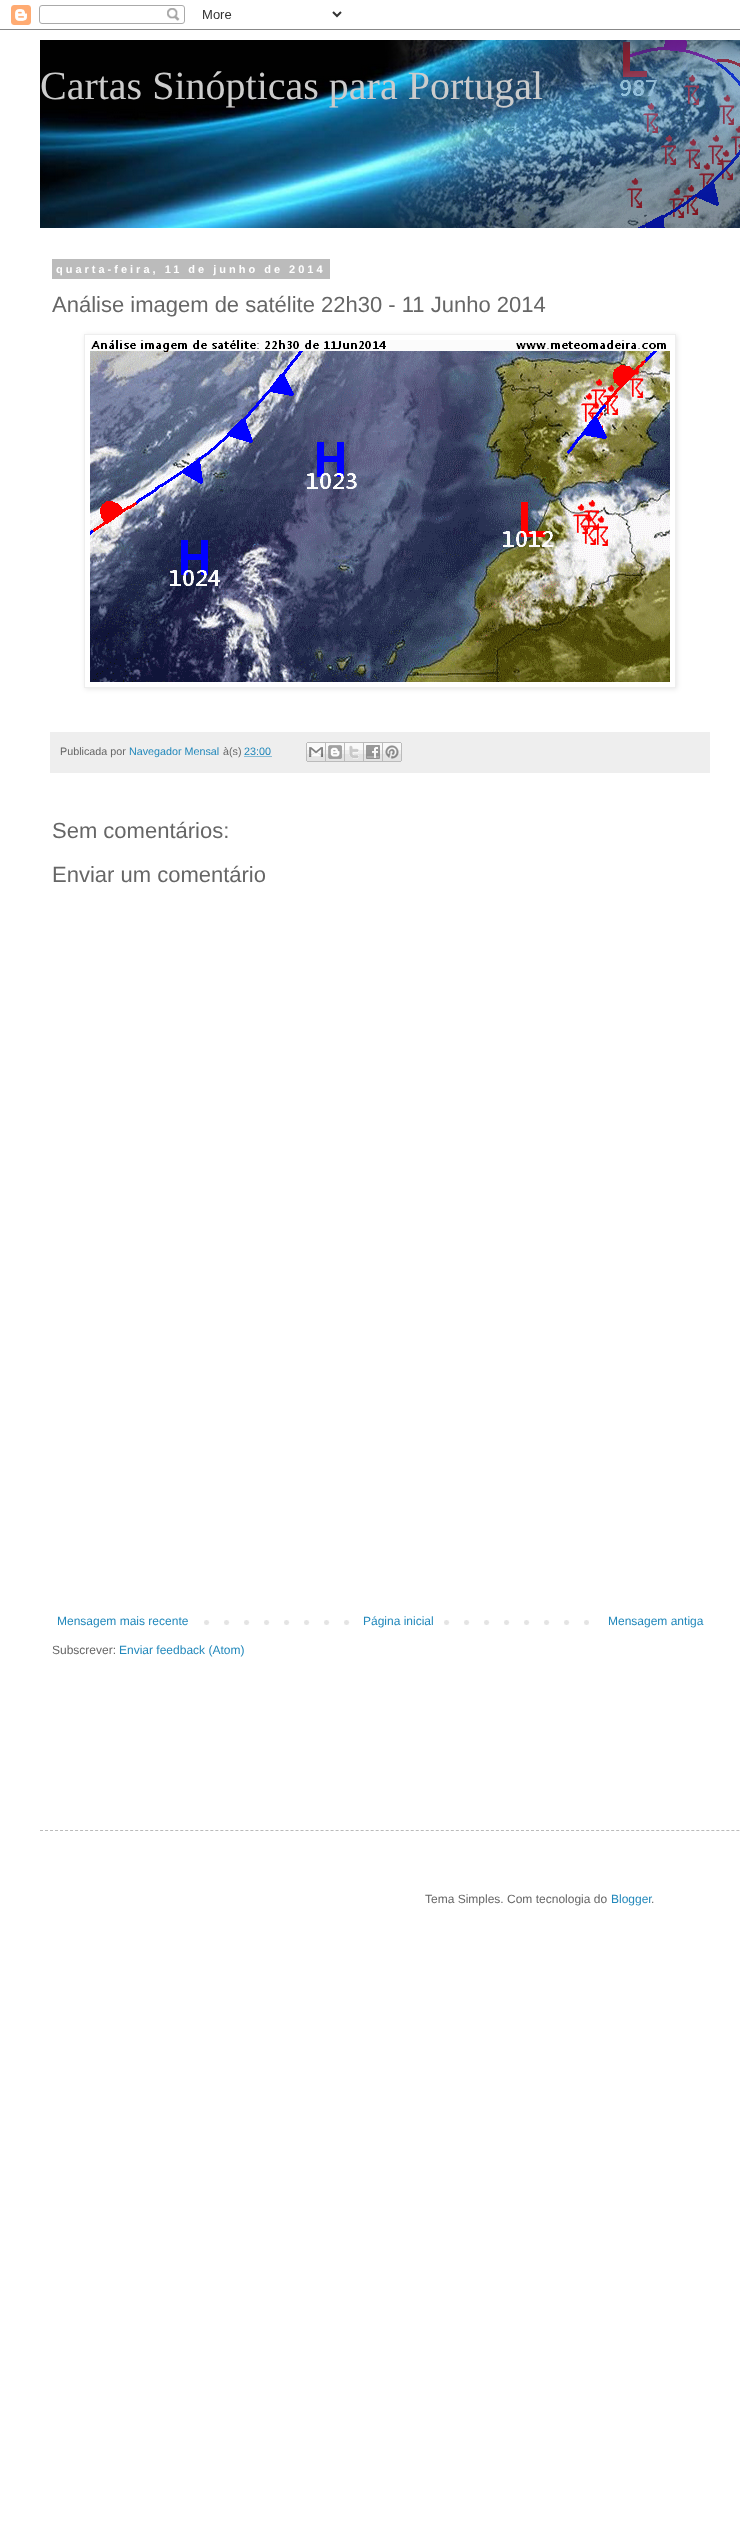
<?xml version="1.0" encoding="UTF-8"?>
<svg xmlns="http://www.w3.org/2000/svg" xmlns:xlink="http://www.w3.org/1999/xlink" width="740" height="2526">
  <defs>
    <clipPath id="clip1"><path d="M 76 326 h 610 v 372 h -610 z m 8 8 h 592 v 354 h -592 z" clip-rule="evenodd" /></clipPath>
  </defs>
  <rect width="100%" height="100%" fill="#ffffff" />
  <image x="0" y="5" width="740" height="25" xlink:href="image1.png" />
  <image x="40" y="40" width="700" height="188" xlink:href="image2.png" />
  <rect x="52" y="259" width="278" height="20" fill="#bbbbbb" />
  <g clip-path="url(#clip1)">
    <rect x="85" y="335" width="592" height="354" fill="#000000" fill-opacity="0.1" filter="blur(2.5px)" />
  </g>
  <rect x="84.5" y="334.5" width="591" height="353" fill="none" stroke="#eeeeee" />
  <image x="90" y="340" width="580" height="342" xlink:href="image3.png" />
  <rect x="50" y="732" width="660" height="41" fill="#eeeeee" />
  <path d="M 244.5 756.5 h 27" fill="none" stroke="#2288bb" stroke-dasharray="1 1" />
  <image x="306" y="742" width="20" height="20" xlink:href="image4.png" />
  <image x="326" y="742" width="19" height="20" xlink:href="image5.png" />
  <image x="345" y="742" width="19" height="20" xlink:href="image6.png" />
  <image x="364" y="742" width="19" height="20" xlink:href="image7.png" />
  <image x="383" y="742" width="19" height="20" xlink:href="image8.png" />
  <image x="204" y="1620" width="385" height="5" xlink:href="image9.png" />
  <rect x="364" y="1620" width="66" height="5" fill="#ffffff" />
  <path d="M 40 1830.5 h 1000" fill="none" stroke="#bbbbbb" stroke-dasharray="3 2.01" />
  <text x="40" y="99" style="font-family: Liberation Serif; font-size: 40px; fill: #cccccc">Cartas Sinópticas para Portugal</text>
  <text x="56" y="273" style="font-family: Liberation Sans; font-size: 11px; font-weight: bold; letter-spacing: 3px; fill: #ffffff">quarta-feira, 11 de junho de 2014</text>
  <text x="52" y="312" style="font-family: Liberation Sans; font-size: 22px; fill: #666666">Análise imagem de satélite 22h30 - 11 Junho 2014</text>
  <text x="60" y="755" style="font-family: Liberation Sans; font-size: 10.75px; fill: #666666">Publicada por</text>
  <text x="129" y="755" style="font-family: Liberation Sans; font-size: 10.75px; fill: #2288bb">Navegador Mensal</text>
  <text x="223" y="755" style="font-family: Liberation Sans; font-size: 10.75px; fill: #666666">à(s)</text>
  <text x="244" y="755" style="font-family: Liberation Sans; font-size: 10.75px; fill: #2288bb">23:00</text>
  <text x="52" y="838" style="font-family: Liberation Sans; font-size: 22px; fill: #666666">Sem comentários:</text>
  <text x="52" y="882" style="font-family: Liberation Sans; font-size: 22px; fill: #666666">Enviar um comentário</text>
  <text x="57" y="1625" style="font-family: Liberation Sans; font-size: 12px; fill: #2288bb">Mensagem mais recente</text>
  <text x="363" y="1625" style="font-family: Liberation Sans; font-size: 12px; fill: #2288bb">Página inicial</text>
  <text x="608" y="1625" style="font-family: Liberation Sans; font-size: 12px; fill: #2288bb">Mensagem antiga</text>
  <text x="52" y="1654" style="font-family: Liberation Sans; font-size: 12px; fill: #666666">Subscrever:</text>
  <text x="119" y="1654" style="font-family: Liberation Sans; font-size: 12px; fill: #2288bb">Enviar feedback (Atom)</text>
  <text x="425" y="1903" style="font-family: Liberation Sans; font-size: 12px; fill: #666666">Tema Simples. Com tecnologia do</text>
  <text x="611" y="1903" style="font-family: Liberation Sans; font-size: 12px; fill: #2288bb">Blogger</text>
  <text x="651" y="1903" style="font-family: Liberation Sans; font-size: 12px; fill: #666666">.</text>
</svg>
